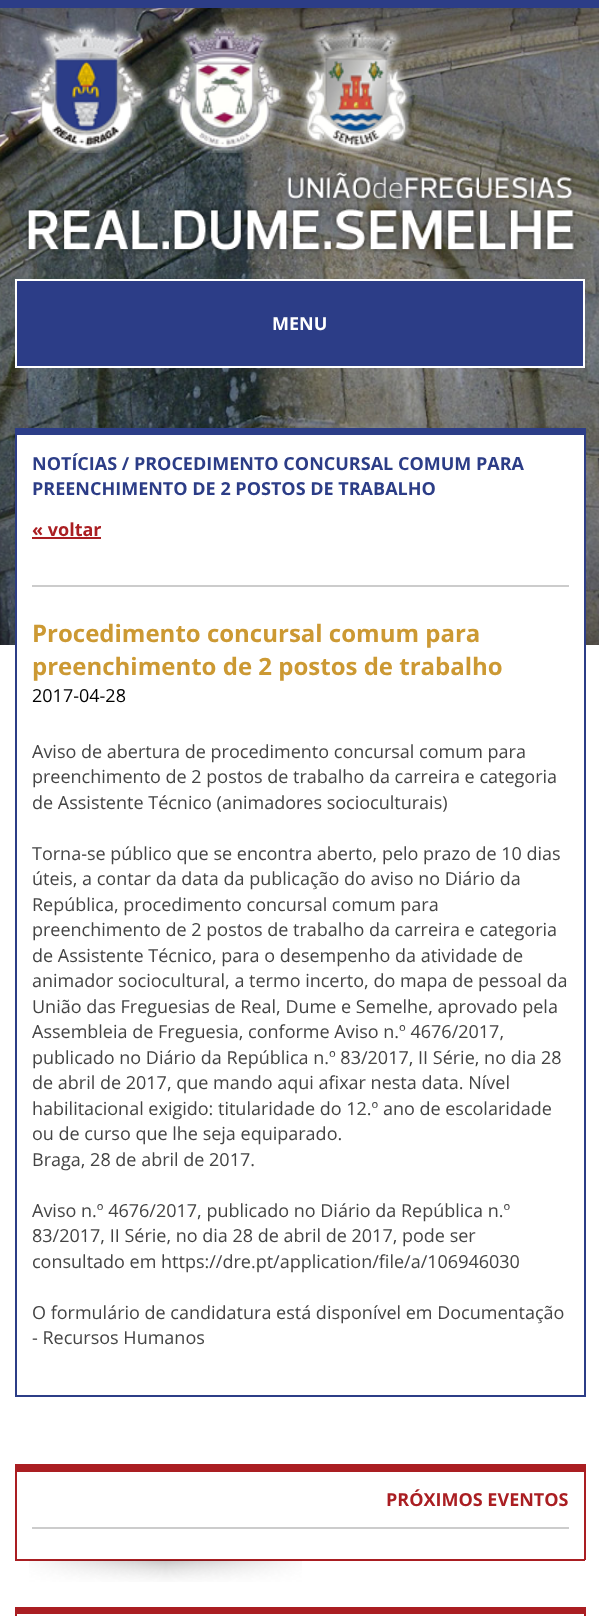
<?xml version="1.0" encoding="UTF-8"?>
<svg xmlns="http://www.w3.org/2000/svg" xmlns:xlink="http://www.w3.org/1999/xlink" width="599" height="1616">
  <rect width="100%" height="100%" fill="#ffffff" />
  <rect width="599" height="8" fill="#2c3d87" />
  <image x="0" y="8" width="599" height="637" xlink:href="image1.png" />
  <image x="24" y="22" width="389" height="131" xlink:href="image2.png" />
  <image x="25" y="170" width="552" height="84" xlink:href="image3.png" />
  <rect x="16" y="280" width="568" height="87" fill="#2c3d87" stroke="#ffffff" stroke-width="2" />
  <rect x="17" y="435" width="567" height="210" fill="#ffffff" />
  <rect x="15" y="428" width="570" height="7" fill="#2c3d87" />
  <rect x="584" y="428" width="2" height="969" fill="#2c3d87" />
  <rect x="15" y="1395" width="570" height="2" fill="#2c3d87" />
  <rect x="15" y="428" width="2" height="969" fill="#2c3d87" />
  <rect x="32" y="537" width="69" height="2" fill="#aa1e22" />
  <rect x="32" y="585" width="537" height="2" fill="#cccccc" />
  <rect x="15" y="1464" width="570" height="8" fill="#aa1e22" />
  <rect x="584" y="1464" width="2" height="96" fill="#aa1e22" />
  <rect x="15" y="1559" width="570" height="2" fill="#aa1e22" />
  <rect x="15" y="1464" width="2" height="96" fill="#aa1e22" />
  <rect x="32" y="1527" width="537" height="2" fill="#cccccc" />
  <image x="29" y="1560" width="273" height="22" xlink:href="image4.png" />
  <rect x="15" y="1607" width="570" height="7" fill="#aa1e22" />
  <rect x="584" y="1607" width="2" height="9" fill="#aa1e22" />
  <rect x="15" y="1607" width="2" height="9" fill="#aa1e22" />
  <text x="272" y="330" style="font-family: Open Sans; font-size: 18px; font-weight: bold; fill: #ffffff">MENU</text>
  <text x="32" y="470" style="font-family: Open Sans; font-size: 18px; font-weight: bold; fill: #2c3d87">NOTÍCIAS / PROCEDIMENTO CONCURSAL COMUM PARA</text>
  <text x="32" y="495" style="font-family: Open Sans; font-size: 18px; font-weight: bold; fill: #2c3d87">PREENCHIMENTO DE 2 POSTOS DE TRABALHO</text>
  <text x="32" y="536" style="font-family: Open Sans; font-size: 18px; font-weight: bold; fill: #aa1e22">« voltar</text>
  <text x="32" y="642" style="font-family: Open Sans; font-size: 24px; font-weight: bold; fill: #cc9933">Procedimento concursal comum para</text>
  <text x="32" y="675" style="font-family: Open Sans; font-size: 24px; font-weight: bold; fill: #cc9933">preenchimento de 2 postos de trabalho</text>
  <text x="32" y="702" style="font-family: Open Sans; font-size: 18px; fill: #000000">2017-04-28</text>
  <text x="32" y="758" style="font-family: Open Sans; font-size: 18px; fill: #444444">Aviso de abertura de procedimento concursal comum para</text>
  <text x="32" y="783" style="font-family: Open Sans; font-size: 18px; fill: #444444">preenchimento de 2 postos de trabalho da carreira e categoria</text>
  <text x="32" y="809" style="font-family: Open Sans; font-size: 18px; fill: #444444">de Assistente Técnico (animadores socioculturais)</text>
  <text x="32" y="860" style="font-family: Open Sans; font-size: 18px; fill: #444444">Torna-se público que se encontra aberto, pelo prazo de 10 dias</text>
  <text x="32" y="885" style="font-family: Open Sans; font-size: 18px; fill: #444444">úteis, a contar da data da publicação do aviso no Diário da</text>
  <text x="32" y="911" style="font-family: Open Sans; font-size: 18px; fill: #444444">República, procedimento concursal comum para</text>
  <text x="32" y="936" style="font-family: Open Sans; font-size: 18px; fill: #444444">preenchimento de 2 postos de trabalho da carreira e categoria</text>
  <text x="32" y="962" style="font-family: Open Sans; font-size: 18px; fill: #444444">de Assistente Técnico, para o desempenho da atividade de</text>
  <text x="32" y="987" style="font-family: Open Sans; font-size: 18px; fill: #444444">animador sociocultural, a termo incerto, do mapa de pessoal da</text>
  <text x="32" y="1013" style="font-family: Open Sans; font-size: 18px; fill: #444444">União das Freguesias de Real, Dume e Semelhe, aprovado pela</text>
  <text x="32" y="1038" style="font-family: Open Sans; font-size: 18px; fill: #444444">Assembleia de Freguesia, conforme Aviso n.º 4676/2017,</text>
  <text x="32" y="1064" style="font-family: Open Sans; font-size: 18px; fill: #444444">publicado no Diário da República n.º 83/2017, II Série, no dia 28</text>
  <text x="32" y="1089" style="font-family: Open Sans; font-size: 18px; fill: #444444">de abril de 2017, que mando aqui afixar nesta data. Nível</text>
  <text x="32" y="1115" style="font-family: Open Sans; font-size: 18px; fill: #444444">habilitacional exigido: titularidade do 12.º ano de escolaridade</text>
  <text x="32" y="1140" style="font-family: Open Sans; font-size: 18px; fill: #444444">ou de curso que lhe seja equiparado.</text>
  <text x="32" y="1166" style="font-family: Open Sans; font-size: 18px; fill: #444444">Braga, 28 de abril de 2017.</text>
  <text x="32" y="1217" style="font-family: Open Sans; font-size: 18px; fill: #444444">Aviso n.º 4676/2017, publicado no Diário da República n.º</text>
  <text x="32" y="1242" style="font-family: Open Sans; font-size: 18px; fill: #444444">83/2017, II Série, no dia 28 de abril de 2017, pode ser</text>
  <text x="32" y="1268" style="font-family: Open Sans; font-size: 18px; fill: #444444">consultado em https://dre.pt/application/file/a/106946030</text>
  <text x="32" y="1319" style="font-family: Open Sans; font-size: 18px; fill: #444444">O formulário de candidatura está disponível em Documentação</text>
  <text x="32" y="1344" style="font-family: Open Sans; font-size: 18px; fill: #444444">- Recursos Humanos</text>
  <text x="386" y="1506" style="font-family: Open Sans; font-size: 18px; font-weight: bold; fill: #aa1e22">PRÓXIMOS EVENTOS</text>
</svg>
